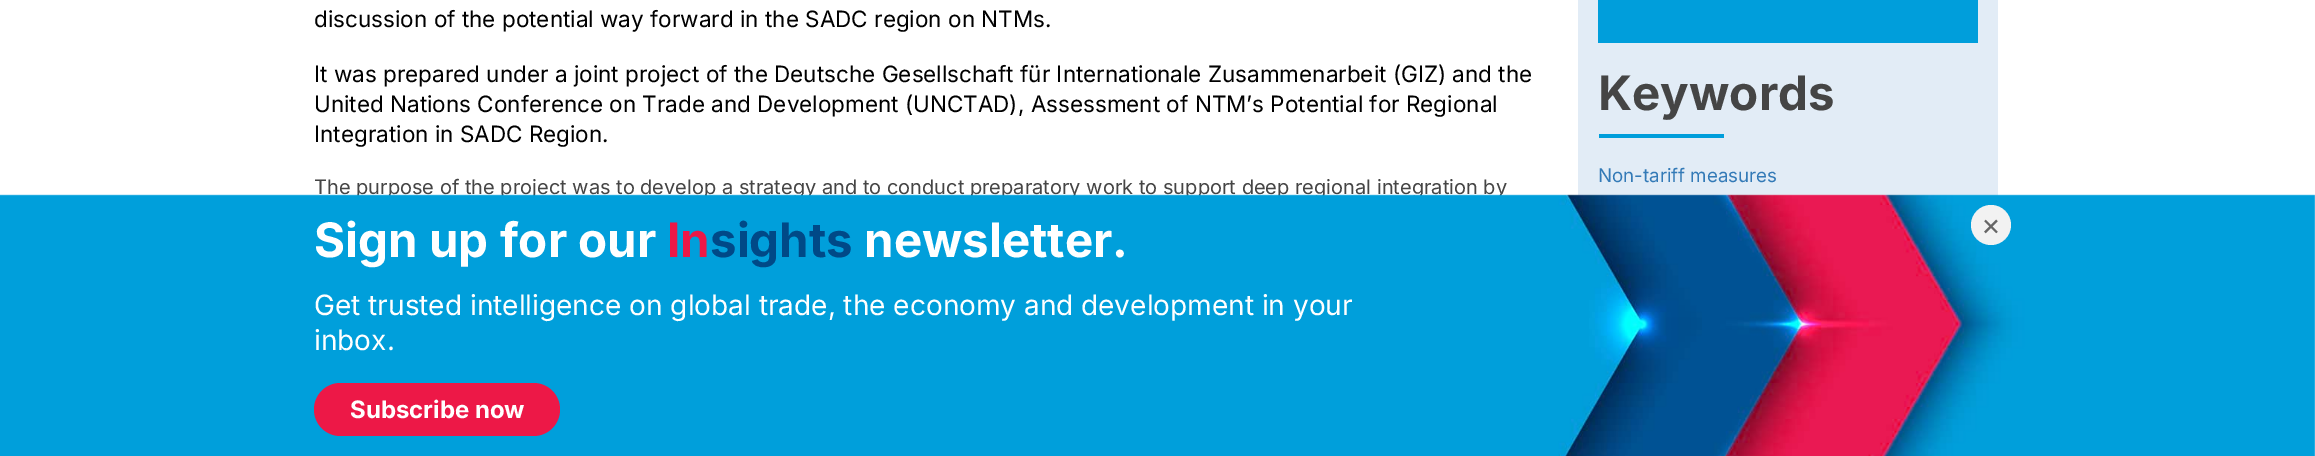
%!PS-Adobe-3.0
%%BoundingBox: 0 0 2315 456
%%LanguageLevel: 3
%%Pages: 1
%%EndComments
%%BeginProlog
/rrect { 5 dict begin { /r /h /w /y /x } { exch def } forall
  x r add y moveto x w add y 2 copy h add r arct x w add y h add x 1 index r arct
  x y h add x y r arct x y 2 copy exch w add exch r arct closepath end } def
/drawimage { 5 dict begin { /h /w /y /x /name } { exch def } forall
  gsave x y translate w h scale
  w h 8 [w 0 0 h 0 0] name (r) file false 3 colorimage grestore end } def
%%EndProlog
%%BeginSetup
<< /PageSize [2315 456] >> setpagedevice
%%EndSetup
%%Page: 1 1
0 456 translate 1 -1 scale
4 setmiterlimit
1 setgray
0 0 2315 456 rectfill
0.886 0.925 0.965 setrgbcolor
1578 0 420 196 rectfill
0 0.62 0.859 setrgbcolor
1598 0 380 43 rectfill
1599 134 125 4 rectfill
/Inter-Regular [22.5 0 0 -22.5 0 0] selectfont
0 setgray
314 27 moveto (discussion of the potential way forward in the SADC region on NTMs.) show
314 82 moveto (It was prepared under a joint project of the Deutsche Gesellschaft für Internationale Zusammenarbeit \(GIZ\) and the) show
314 112 moveto (United Nations Conference on Trade and Development \(UNCTAD\), Assessment of NTM’s Potential for Regional) show
314 142 moveto (Integration in SADC Region.) show
/Inter-Regular [20 0 0 -20 0 0] selectfont
0.271 setgray
314 194 moveto (The purpose of the project was to develop a strategy and to conduct preparatory work to support deep regional integration by) show
/Inter-Bold [47.5 0 0 -47.5 0 0] selectfont
1598 110 moveto (Keywords) show
/Inter-Regular [18.75 0 0 -18.75 0 0] selectfont
0.2 0.478 0.718 setrgbcolor
1598 182 moveto (Non-tariff measures) show
(images/1.raw) 0 194 2315 262 drawimage
/Inter-Bold [47.5 0 0 -47.5 0 0] selectfont
1 setgray
314 257 moveto (Sign up for our) show
0.929 0.094 0.278 setrgbcolor
667 257 moveto (In) show
0 0.286 0.529 setrgbcolor
710 257 moveto (sights) show
1 setgray
864 257 moveto (newsletter.) show
0.949 setgray
newpath 1991 225 20 0 360 arc closepath fill
/Inter-Regular [30 0 0 -30 0 0] selectfont
0.4 setgray
1981 235 moveto (×) show
/Inter-Regular [28 0 0 -28 0 0] selectfont
1 setgray
314 315 moveto (Get trusted intelligence on global trade, the economy and) show
1081 315 moveto (development in your) show
314 350 moveto (inbox.) show
0.929 0.094 0.278 setrgbcolor
314 383 246 53 26.5 rrect fill
/Inter-Bold [24 0 0 -24 0 0] selectfont
1 setgray
350 418 moveto (Subscribe now) show
showpage
%%EOF
